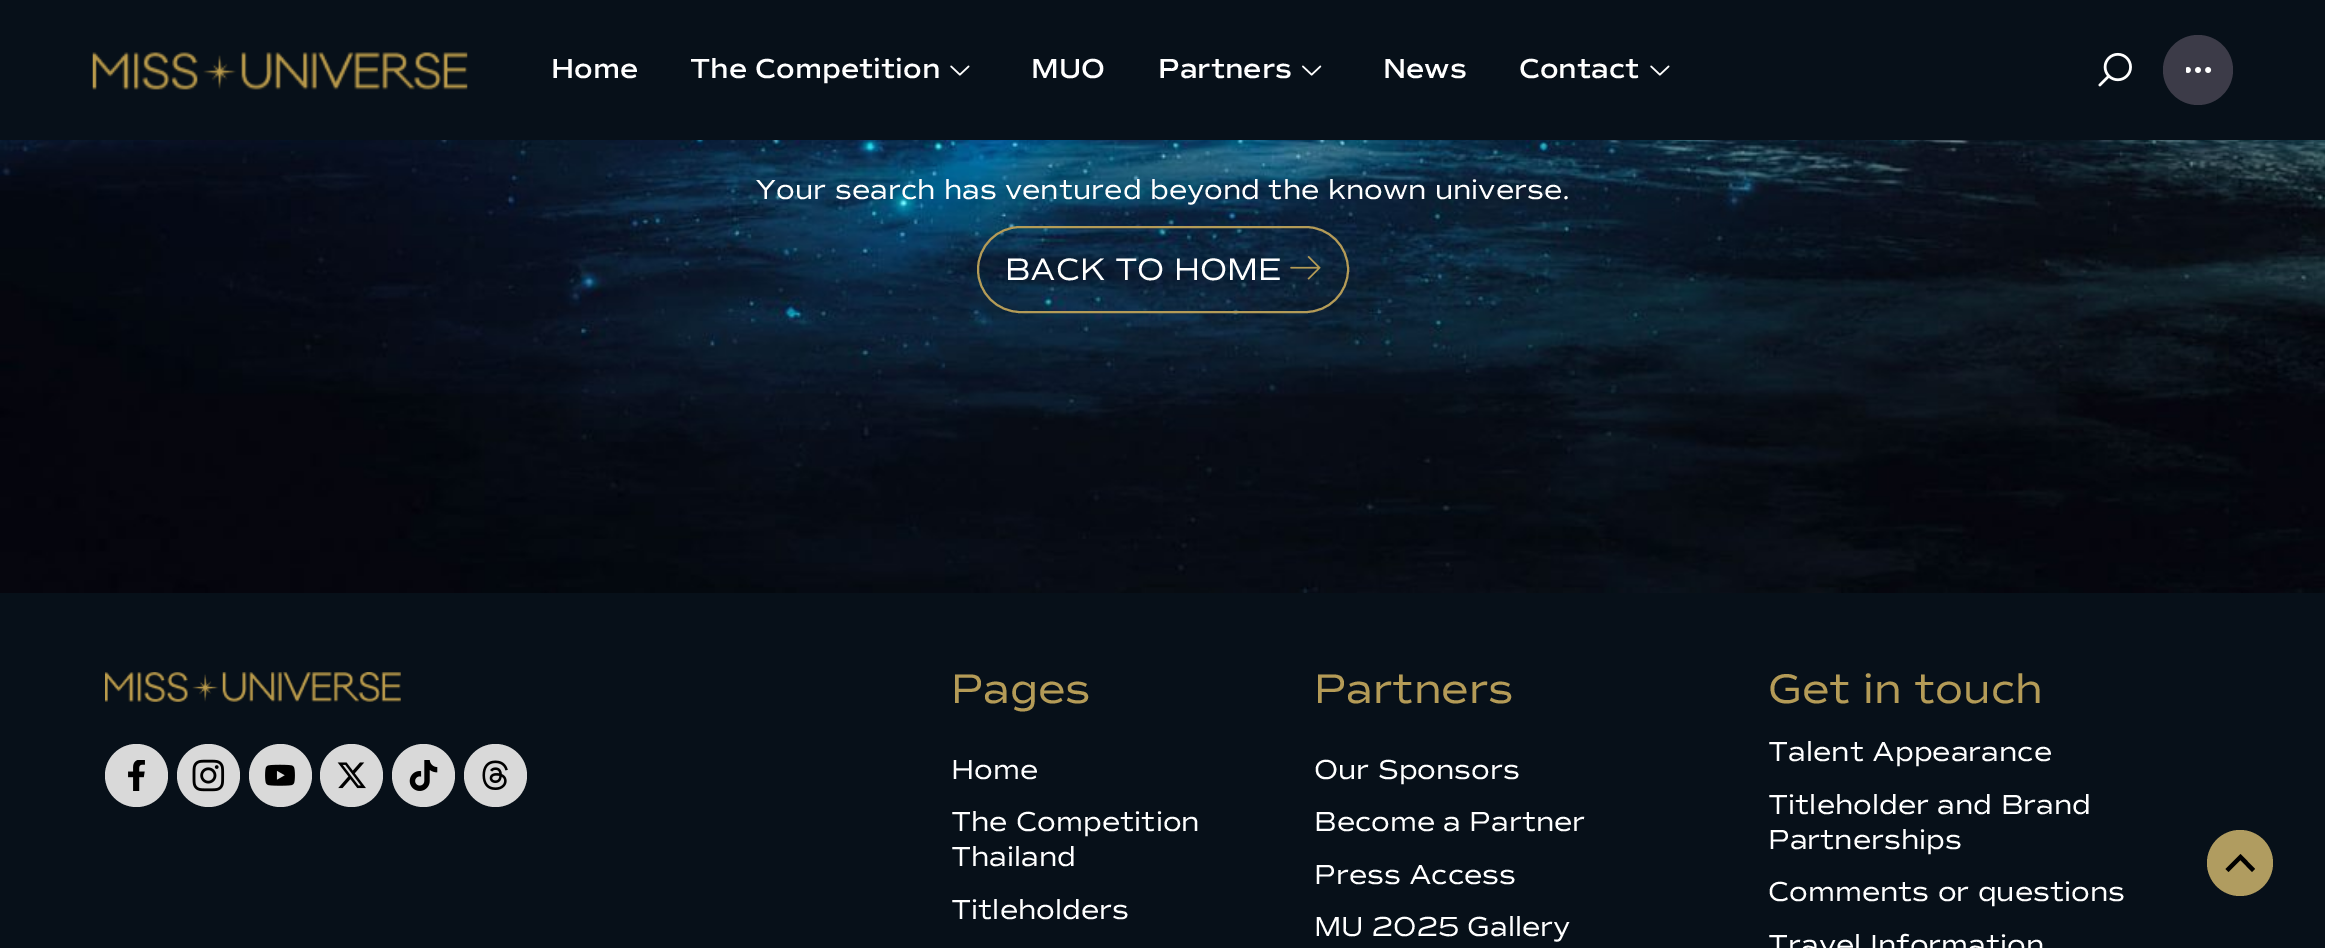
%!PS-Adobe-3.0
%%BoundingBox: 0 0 2325 948
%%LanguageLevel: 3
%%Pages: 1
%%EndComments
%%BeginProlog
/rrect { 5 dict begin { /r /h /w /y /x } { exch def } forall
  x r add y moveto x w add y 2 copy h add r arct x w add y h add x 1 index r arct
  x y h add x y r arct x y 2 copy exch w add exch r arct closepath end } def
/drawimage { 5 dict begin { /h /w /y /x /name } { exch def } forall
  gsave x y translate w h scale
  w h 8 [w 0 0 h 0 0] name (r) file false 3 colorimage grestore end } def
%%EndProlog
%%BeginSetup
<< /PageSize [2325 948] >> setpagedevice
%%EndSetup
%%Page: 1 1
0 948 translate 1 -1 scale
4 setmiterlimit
1 setgray
0 0 2325 948 rectfill
0.027 0.063 0.098 setrgbcolor
0 0 2325 140 rectfill
(images/1.raw) 92 52 376 38 drawimage
(images/2.raw) 950 65 20 11 drawimage
(images/3.raw) 1302 65 20 11 drawimage
(images/2.raw) 1650 65 20 11 drawimage
(images/4.raw) 2098 52 34 35 drawimage
0.235 0.231 0.282 setrgbcolor
newpath 2198 70 35 0 360 arc closepath fill
(images/5.raw) 2186 67 26 6 drawimage
(images/6.raw) 0 140 2325 453 drawimage
0.706 0.608 0.341 setrgbcolor
2 setlinewidth
978 227 370 85 42.5 rrect stroke
(images/7.raw) 1290 256 31 24 drawimage
0.027 0.063 0.098 setrgbcolor
0 593 2325 355 rectfill
(images/8.raw) 105 672 296 30 drawimage
0.851 setgray
newpath 136.5 775.5 31.5 0 360 arc closepath fill
(images/9.raw) 128 760 17 31 drawimage
newpath 208.5 775.5 31.5 0 360 arc closepath fill
(images/10.raw) 192 759 33 33 drawimage
newpath 280.5 775.5 31.5 0 360 arc closepath fill
(images/11.raw) 265 764 30 22 drawimage
newpath 351.5 775.5 31.5 0 360 arc closepath fill
(images/12.raw) 337 762 29 27 drawimage
newpath 423.5 775.5 31.5 0 360 arc closepath fill
(images/13.raw) 409 760 29 31 drawimage
newpath 495.5 775.5 31.5 0 360 arc closepath fill
(images/14.raw) 482 760 26 30 drawimage
0.69 0.612 0.376 setrgbcolor
newpath 2240 863 33 0 360 arc closepath fill
0 setgray
newpath 2255 869 moveto 2240.5 854 lineto 2225.5 869 lineto 2228.5 872 lineto 2240.5 860 lineto 2252 872 lineto closepath fill
/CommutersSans-SemiBold [28 0 0 -28 0 0] selectfont
1 setgray
551 78 moveto (Home) show
690 78 moveto (The Competition) show
1031 78 moveto (MUO) show
1158 78 moveto (Partners) show
1383 78 moveto (News) show
1519 78 moveto (Contact) show
/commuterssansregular-Regular [28 0 0 -28 0 0] selectfont
755 199 moveto (Your search has ventured beyond the known universe.) show
/commuterssansregular-Regular [31.5 0 0 -31.5 0 0] selectfont
1005 280 moveto (BACK TO HOME) show
/commuterssansregular-Regular [42 0 0 -42 0 0] selectfont
0.706 0.608 0.341 setrgbcolor
951 703 moveto (Pages) show
/commuterssansregular-Regular [28 0 0 -28 0 0] selectfont
1 setgray
951 779 moveto (Home) show
951 831 moveto (The Competition) show
951 866 moveto (Thailand) show
951 919 moveto (Titleholders) show
/commuterssansregular-Regular [42 0 0 -42 0 0] selectfont
0.706 0.608 0.341 setrgbcolor
1314 703 moveto (Partners) show
/commuterssansregular-Regular [28 0 0 -28 0 0] selectfont
1 setgray
1314 779 moveto (Our Sponsors) show
1314 831 moveto (Become a Partner) show
1314 884 moveto (Press Access) show
1314 936 moveto (MU 2025 Gallery) show
/commuterssansregular-Regular [42 0 0 -42 0 0] selectfont
0.706 0.608 0.341 setrgbcolor
1768 703 moveto (Get in touch) show
/commuterssansregular-Regular [28 0 0 -28 0 0] selectfont
1 setgray
1768 761 moveto (Talent Appearance) show
1768 814 moveto (Titleholder and Brand) show
1768 849 moveto (Partnerships) show
1768 901 moveto (Comments or questions) show
1768 954 moveto (Travel Information) show
showpage
%%EOF
